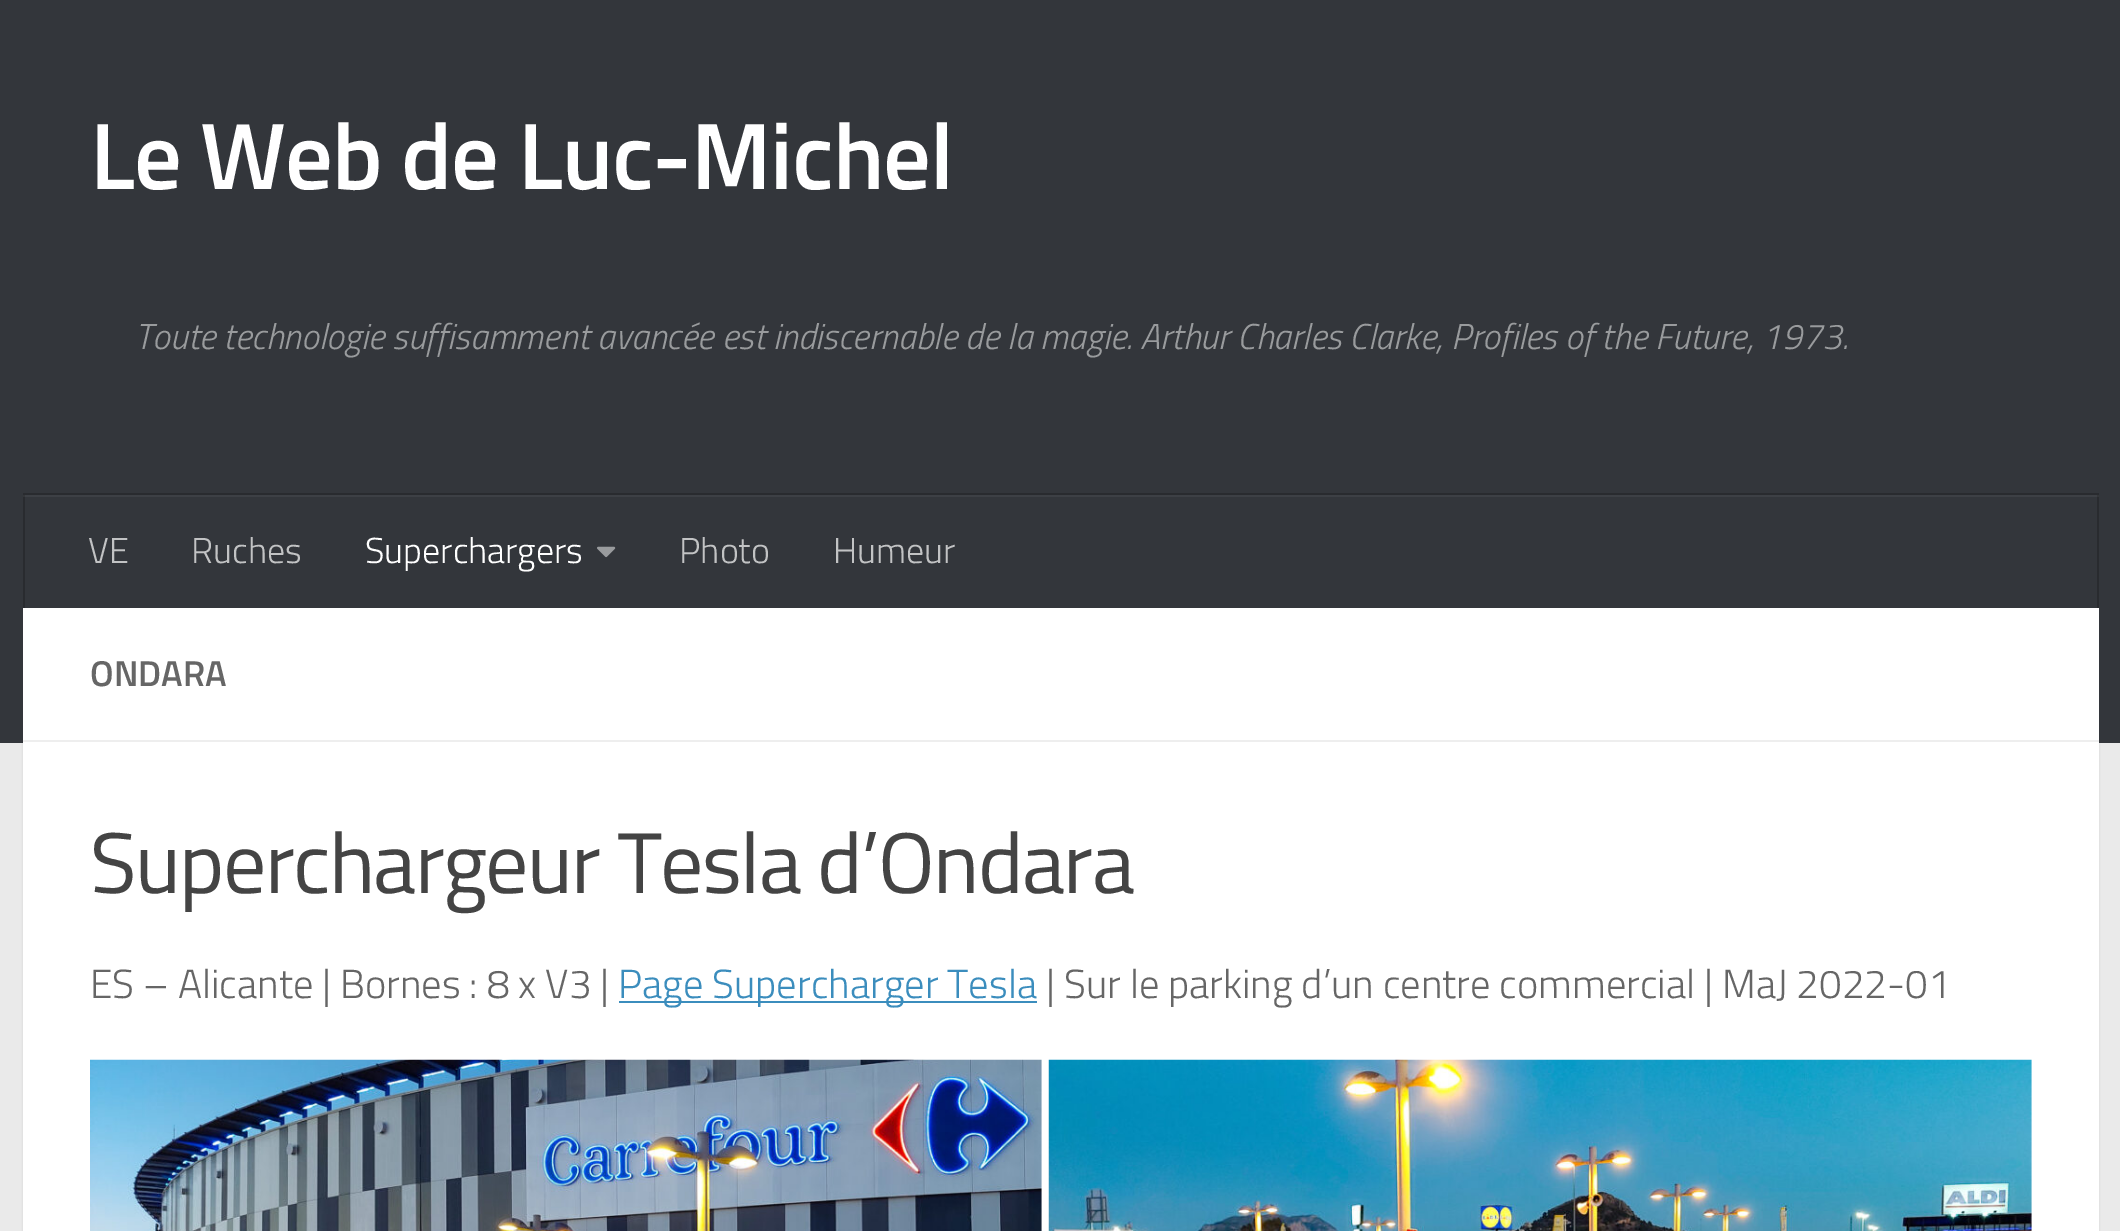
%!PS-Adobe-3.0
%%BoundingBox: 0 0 2120 1231
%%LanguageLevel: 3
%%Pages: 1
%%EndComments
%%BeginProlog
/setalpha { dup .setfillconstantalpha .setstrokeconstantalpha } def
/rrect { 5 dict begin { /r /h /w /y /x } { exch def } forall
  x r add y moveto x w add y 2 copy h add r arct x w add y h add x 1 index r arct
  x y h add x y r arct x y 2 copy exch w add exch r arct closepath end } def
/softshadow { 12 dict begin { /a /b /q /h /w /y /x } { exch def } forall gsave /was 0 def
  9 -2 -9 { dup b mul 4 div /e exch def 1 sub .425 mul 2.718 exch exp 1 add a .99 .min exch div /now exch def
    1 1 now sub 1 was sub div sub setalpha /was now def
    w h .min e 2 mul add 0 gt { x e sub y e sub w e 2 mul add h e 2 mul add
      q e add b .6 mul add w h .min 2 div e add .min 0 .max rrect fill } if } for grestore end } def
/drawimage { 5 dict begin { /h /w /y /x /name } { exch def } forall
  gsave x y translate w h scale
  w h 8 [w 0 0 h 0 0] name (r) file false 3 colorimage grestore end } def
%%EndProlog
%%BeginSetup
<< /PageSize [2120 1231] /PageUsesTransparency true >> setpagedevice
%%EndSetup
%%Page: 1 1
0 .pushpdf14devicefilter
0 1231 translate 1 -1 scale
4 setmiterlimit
0.918 setgray
0 0 2120 1231 rectfill
0 setgray
23 610 2076 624 0 1 0.1 softshadow
0.2 0.212 0.231 setrgbcolor
0 0 2120 743 rectfill
0.239 0.251 0.271 setrgbcolor
23 495 2076 2 rectfill
0.161 0.169 0.184 setrgbcolor
23 493 2076 2 rectfill
2097 495 2 113 rectfill
0.204 0.212 0.224 setrgbcolor
2097 495 2 2 rectfill
0.161 0.169 0.184 setrgbcolor
23 495 2 113 rectfill
0.204 0.212 0.224 setrgbcolor
23 495 2 2 rectfill
(images/1.raw) 597 546 19 12 drawimage
1 setgray
23 608 2076 623 rectfill
0.933 setgray
23 740 2076 2 rectfill
0.231 0.553 0.741 setrgbcolor
619 1001 418 2 rectfill
(images/2.raw) 90 1059 952 172 drawimage
(images/3.raw) 1048 1059 984 172 drawimage
/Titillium-SemiBold [94.5 0 0 -94.5 0 0] selectfont
1 setgray
90 189 moveto -1.1 0 (Le Web de Luc-Michel) ashow
/Titillium-LightItalic [36 0 0 -36 0 0] selectfont
0.6 0.608 0.616 setrgbcolor
135 349 moveto (Toute technologie suffisamment avancée est indiscernable de la magie. Arthur Charles Clarke, Profiles of the Future, 1973.) show
/Titillium-Light [36 0 0 -36 0 0] selectfont
0.761 0.765 0.769 setrgbcolor
88 563 moveto (VE) show
191 563 moveto (Ruches) show
1 setgray
365 563 moveto (Superchargers) show
0.761 0.765 0.769 setrgbcolor
679 563 moveto (Photo) show
833 563 moveto (Humeur) show
/Titillium-SemiBold [36 0 0 -36 0 0] selectfont
0.4 setgray
90 686 moveto (ONDARA) show
/Titillium-Regular [86 0 0 -86 0 0] selectfont
0.267 setgray
90 893 moveto -1.6 0 (Superchargeur Tesla d’Ondara) ashow
/Titillium-Light [40.5 0 0 -40.5 0 0] selectfont
0.4 setgray
90 998 moveto (ES – Alicante | Bornes : 8 x V3 |) show
0.231 0.553 0.741 setrgbcolor
618 998 moveto (Page Supercharger Tesla) show
0.4 setgray
1046 998 moveto (| Sur le parking d’un centre commercial | MaJ 2022-01) show
.poppdf14devicefilter showpage
%%EOF
